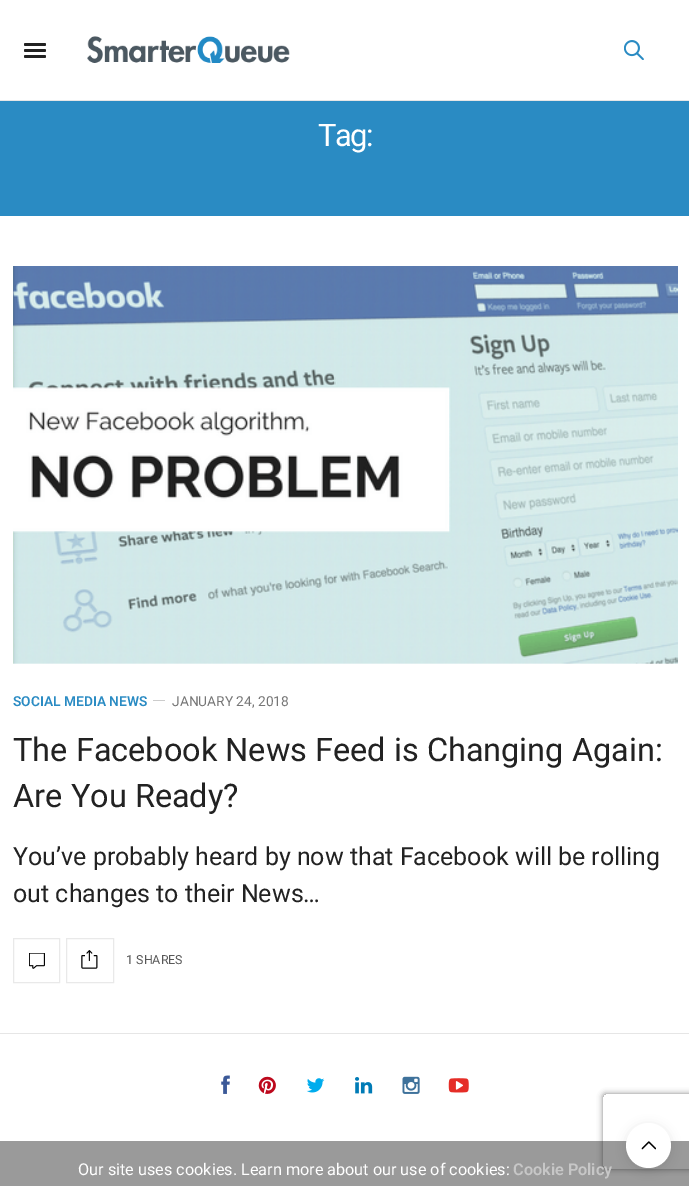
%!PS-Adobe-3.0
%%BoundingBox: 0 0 689 1186
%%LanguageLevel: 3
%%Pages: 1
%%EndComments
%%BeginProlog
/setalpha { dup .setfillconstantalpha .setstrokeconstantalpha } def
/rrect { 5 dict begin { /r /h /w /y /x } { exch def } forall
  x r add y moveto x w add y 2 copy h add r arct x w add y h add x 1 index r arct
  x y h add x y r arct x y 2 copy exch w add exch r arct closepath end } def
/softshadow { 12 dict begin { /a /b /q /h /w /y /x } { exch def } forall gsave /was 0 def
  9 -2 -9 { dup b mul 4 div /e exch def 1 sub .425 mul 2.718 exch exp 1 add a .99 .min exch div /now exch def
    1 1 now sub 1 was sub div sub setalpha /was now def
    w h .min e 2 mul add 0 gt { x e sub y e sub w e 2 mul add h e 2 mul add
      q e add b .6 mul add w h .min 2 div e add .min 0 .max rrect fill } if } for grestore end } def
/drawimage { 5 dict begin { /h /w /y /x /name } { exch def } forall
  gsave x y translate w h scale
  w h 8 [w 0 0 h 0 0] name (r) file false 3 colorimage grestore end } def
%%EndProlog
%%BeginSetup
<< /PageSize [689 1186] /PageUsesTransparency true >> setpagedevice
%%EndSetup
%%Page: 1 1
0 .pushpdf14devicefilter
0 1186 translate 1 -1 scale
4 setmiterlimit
1 setgray
0 0 689 1186 rectfill
0.902 setgray
0 100 689 1 rectfill
0.133 setgray
24 43 22 3 1.5 rrect fill
24 49 22 3 1.5 rrect fill
24 55 22 3 1.5 rrect fill
(images/1.raw) 87 36 203 27 drawimage
(images/2.raw) 624 40 20 20 drawimage
0.165 0.545 0.765 setrgbcolor
0 101 689 115 rectfill
(images/3.raw) 13 266 665 398 drawimage
0.8 setgray
153 700 12 1 rectfill
0.914 setgray
13.5 938.5 46 44 rectstroke
(images/4.raw) 29 953 16 16 drawimage
66.5 938.5 47 44 rectstroke
(images/5.raw) 81 950 17 19 drawimage
0.902 setgray
0 1033 689 1 rectfill
(images/6.raw) 221 1075 9 19 drawimage
(images/7.raw) 258 1076 18 18 drawimage
(images/8.raw) 306 1078 19 15 drawimage
(images/9.raw) 355 1077 18 17 drawimage
(images/10.raw) 402 1076 18 18 drawimage
(images/11.raw) 448 1078 21 15 drawimage
gsave
newpath 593 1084 moveto 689 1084 lineto 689 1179 lineto 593 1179 lineto closepath 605.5 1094 moveto 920.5 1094 lineto 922 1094 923 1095 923 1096.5 curveto 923 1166.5 lineto 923 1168 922 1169 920.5 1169 curveto 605.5 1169 lineto 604 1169 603 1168 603 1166.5 curveto 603 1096.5 lineto 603 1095 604 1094 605.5 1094 curveto closepath eoclip newpath
0.502 setgray
603 1094 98 75 2.5 3 1 softshadow
grestore
0.46 setalpha
0.133 setgray
0 1141 689 45 rectfill
1 setalpha
0 setgray
626 1125 45 45 22.5 5 0.1 softshadow
1 setgray
newpath 648.5 1145.5 22.5 0 360 arc closepath fill
(images/12.raw) 641 1141 15 9 drawimage
/Roboto-Regular [31 0 0 -31 0 0] selectfont
318 146 moveto -1.5 0 (Tag:) ashow
/Roboto-SemiBold [13.75 0 0 -13.75 0 0] selectfont
0.165 0.545 0.765 setrgbcolor
13 706 moveto (SOCIAL MEDIA NEWS) show
/Roboto-Regular [13.75 0 0 -13.75 0 0] selectfont
0.463 setgray
172 706 moveto (JANUARY 24, 2018) show
/Roboto-Regular [32.5 0 0 -32.5 0 0] selectfont
0.133 setgray
13 761 moveto (The Facebook News Feed is Changing Again:) show
13 807 moveto (Are You Ready?) show
/Roboto-Regular [25 0 0 -25 0 0] selectfont
13 865 moveto (You’ve probably heard by now that Facebook will be rolling) show
13 902 moveto (out changes to their News…) show
/Roboto-Regular [12.5 0 0 -12.5 0 0] selectfont
0.349 setgray
126 964 moveto (1 SHARES) show
/Roboto-Regular [16.25 0 0 -16.25 0 0] selectfont
1 setgray
78 1175 moveto (Our site uses cookies. Learn more about our use of cookies:) show
/Roboto-SemiBold [16.25 0 0 -16.25 0 0] selectfont
0.78 setgray
513 1175 moveto (Cookie Policy) show
.poppdf14devicefilter showpage
%%EOF
